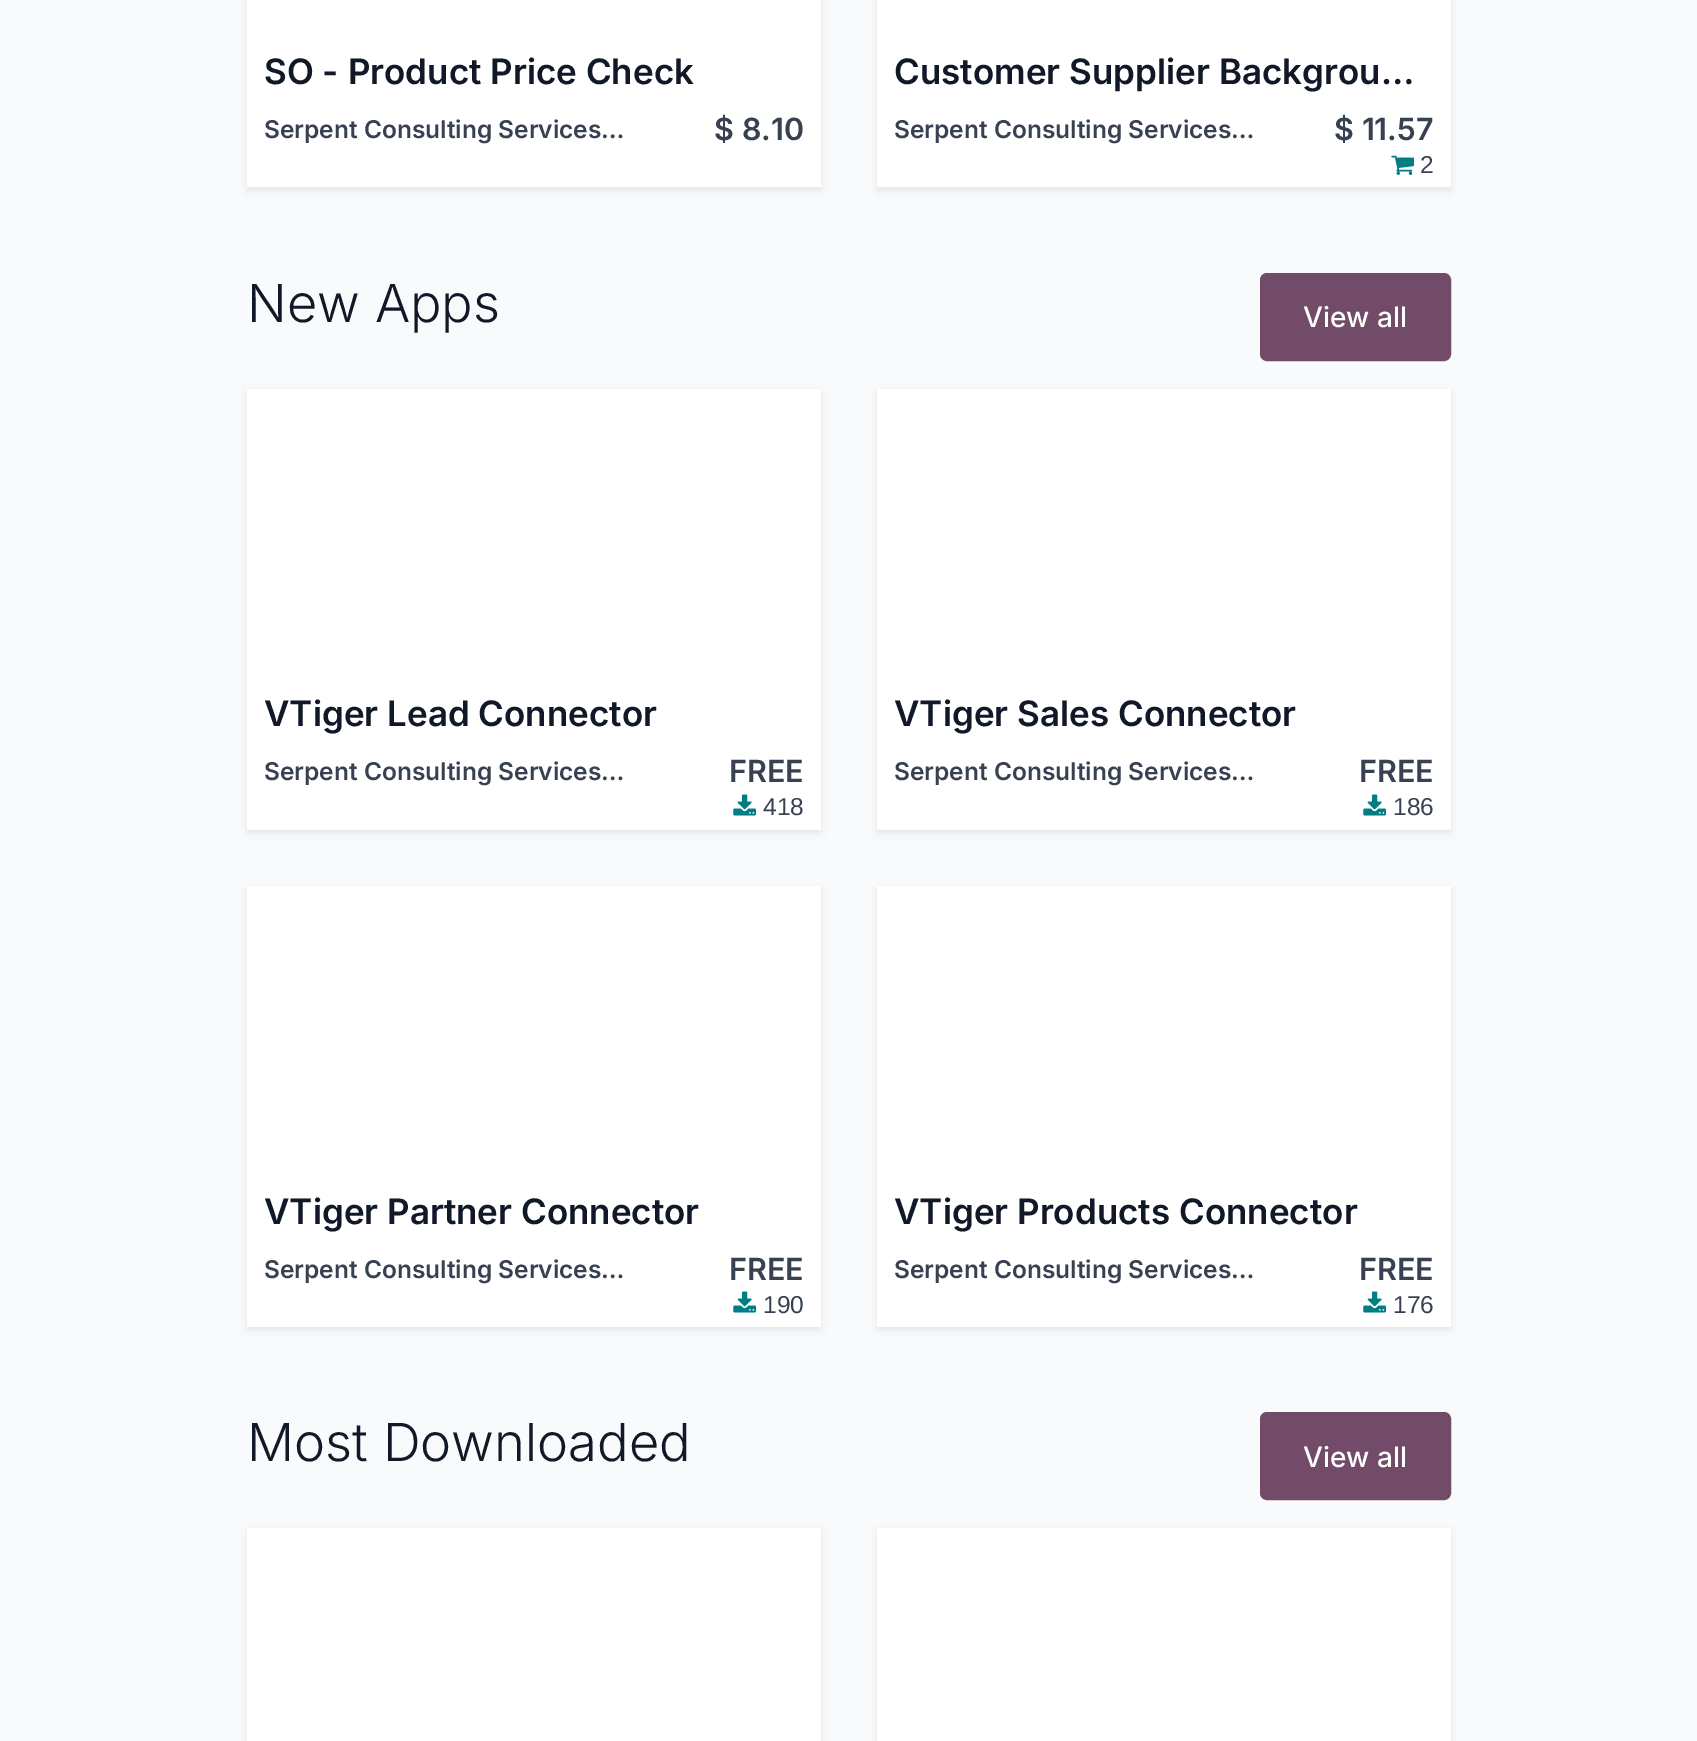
%!PS-Adobe-3.0
%%BoundingBox: 0 0 1697 1741
%%LanguageLevel: 3
%%Pages: 1
%%EndComments
%%BeginProlog
/setalpha { dup .setfillconstantalpha .setstrokeconstantalpha } def
/rrect { 5 dict begin { /r /h /w /y /x } { exch def } forall
  x r add y moveto x w add y 2 copy h add r arct x w add y h add x 1 index r arct
  x y h add x y r arct x y 2 copy exch w add exch r arct closepath end } def
/softshadow { 12 dict begin { /a /b /q /h /w /y /x } { exch def } forall gsave /was 0 def
  9 -2 -9 { dup b mul 4 div /e exch def 1 sub .425 mul 2.718 exch exp 1 add a .99 .min exch div /now exch def
    1 1 now sub 1 was sub div sub setalpha /was now def
    w h .min e 2 mul add 0 gt { x e sub y e sub w e 2 mul add h e 2 mul add
      q e add b .6 mul add w h .min 2 div e add .min 0 .max rrect fill } if } for grestore end } def
/drawimage { 5 dict begin { /h /w /y /x /name } { exch def } forall
  gsave x y translate w h scale
  w h 8 [w 0 0 h 0 0] name (r) file false 3 colorimage grestore end } def
%%EndProlog
%%BeginSetup
<< /PageSize [1697 1741] /PageUsesTransparency true >> setpagedevice
%%EndSetup
%%Page: 1 1
0 .pushpdf14devicefilter
0 1741 translate 1 -1 scale
4 setmiterlimit
0.976 0.98 0.984 setrgbcolor
0 0 1697 1741 rectfill
0 setgray
247 -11 574 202 0 3.5 0.07 softshadow
1 setgray
247 0 574 187 rectfill
0 setgray
877 -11 574 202 0 3.5 0.07 softshadow
1 setgray
877 0 574 187 rectfill
(images/1.raw) 1391 155 23 20 drawimage
0.443 0.294 0.404 setrgbcolor
1261 274 189 86 6 rrect gsave fill grestore
2 setlinewidth
stroke
0 setgray
247 392 574 441 0 3.5 0.07 softshadow
1 setgray
247 389 574 441 rectfill
(images/2.raw) 733 794 23 22 drawimage
0 setgray
877 392 574 441 0 3.5 0.07 softshadow
1 setgray
877 389 574 441 rectfill
(images/2.raw) 1363 794 23 22 drawimage
0 setgray
247 889 574 441 0 3.5 0.07 softshadow
1 setgray
247 886 574 441 rectfill
(images/2.raw) 733 1291 23 22 drawimage
0 setgray
877 889 574 441 0 3.5 0.07 softshadow
1 setgray
877 886 574 441 rectfill
(images/2.raw) 1363 1291 23 22 drawimage
0.443 0.294 0.404 setrgbcolor
1261 1413 189 86 6 rrect gsave fill grestore
stroke
0 setgray
247 1531 574 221 0 3.5 0.07 softshadow
1 setgray
247 1528 574 213 rectfill
0 setgray
877 1531 574 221 0 3.5 0.07 softshadow
1 setgray
877 1528 574 213 rectfill
/Inter-SemiBold [35 0 0 -35 0 0] selectfont
0.067 0.094 0.153 setrgbcolor
264 84 moveto (SO - Product Price Check) show
/Inter-SemiBold [24.5 0 0 -24.5 0 0] selectfont
0.216 0.255 0.318 setrgbcolor
264 138 moveto (Serpent Consulting Services…) show
/Inter-SemiBold [30.5 0 0 -30.5 0 0] selectfont
714 140 moveto ($ 8.10) show
/Inter-SemiBold [35 0 0 -35 0 0] selectfont
0.067 0.094 0.153 setrgbcolor
894 84 moveto (Customer Supplier Backgrou…) show
/Inter-SemiBold [24.5 0 0 -24.5 0 0] selectfont
0.216 0.255 0.318 setrgbcolor
894 138 moveto (Serpent Consulting Services…) show
/Inter-SemiBold [30.5 0 0 -30.5 0 0] selectfont
1334 140 moveto ($ 11.57) show
/LiberationSans-Regular [24.5 0 0 -24.5 0 0] selectfont
1420 173 moveto (2) show
/Inter-Light [52.4 0 0 -52.4 0 0] selectfont
0.067 0.094 0.153 setrgbcolor
247 322 moveto (New Apps) show
/Inter-Medium [28 0 0 -28 0 0] selectfont
1 setgray
1303 327 moveto (View all) show
/Inter-SemiBold [35 0 0 -35 0 0] selectfont
0.067 0.094 0.153 setrgbcolor
264 726 moveto (VTiger Lead Connector) show
/Inter-SemiBold [24.5 0 0 -24.5 0 0] selectfont
0.216 0.255 0.318 setrgbcolor
264 780 moveto (Serpent Consulting Services…) show
/Inter-SemiBold [30.5 0 0 -30.5 0 0] selectfont
729 782 moveto (FREE) show
/LiberationSans-Regular [24.5 0 0 -24.5 0 0] selectfont
763 815 moveto (418) show
/Inter-SemiBold [35 0 0 -35 0 0] selectfont
0.067 0.094 0.153 setrgbcolor
894 726 moveto (VTiger Sales Connector) show
/Inter-SemiBold [24.5 0 0 -24.5 0 0] selectfont
0.216 0.255 0.318 setrgbcolor
894 780 moveto (Serpent Consulting Services…) show
/Inter-SemiBold [30.5 0 0 -30.5 0 0] selectfont
1359 782 moveto (FREE) show
/LiberationSans-Regular [24.5 0 0 -24.5 0 0] selectfont
1393 815 moveto (186) show
/Inter-SemiBold [35 0 0 -35 0 0] selectfont
0.067 0.094 0.153 setrgbcolor
264 1224 moveto (VTiger Partner Connector) show
/Inter-SemiBold [24.5 0 0 -24.5 0 0] selectfont
0.216 0.255 0.318 setrgbcolor
264 1278 moveto (Serpent Consulting Services…) show
/Inter-SemiBold [30.5 0 0 -30.5 0 0] selectfont
729 1280 moveto (FREE) show
/LiberationSans-Regular [24.5 0 0 -24.5 0 0] selectfont
763 1313 moveto (190) show
/Inter-SemiBold [35 0 0 -35 0 0] selectfont
0.067 0.094 0.153 setrgbcolor
894 1224 moveto (VTiger Products Connector) show
/Inter-SemiBold [24.5 0 0 -24.5 0 0] selectfont
0.216 0.255 0.318 setrgbcolor
894 1278 moveto (Serpent Consulting Services…) show
/Inter-SemiBold [30.5 0 0 -30.5 0 0] selectfont
1359 1280 moveto (FREE) show
/LiberationSans-Regular [24.5 0 0 -24.5 0 0] selectfont
1393 1313 moveto (176) show
/Inter-Light [52.4 0 0 -52.4 0 0] selectfont
0.067 0.094 0.153 setrgbcolor
247 1461 moveto (Most Downloaded) show
/Inter-Medium [28 0 0 -28 0 0] selectfont
1 setgray
1303 1467 moveto (View all) show
.poppdf14devicefilter showpage
%%EOF
